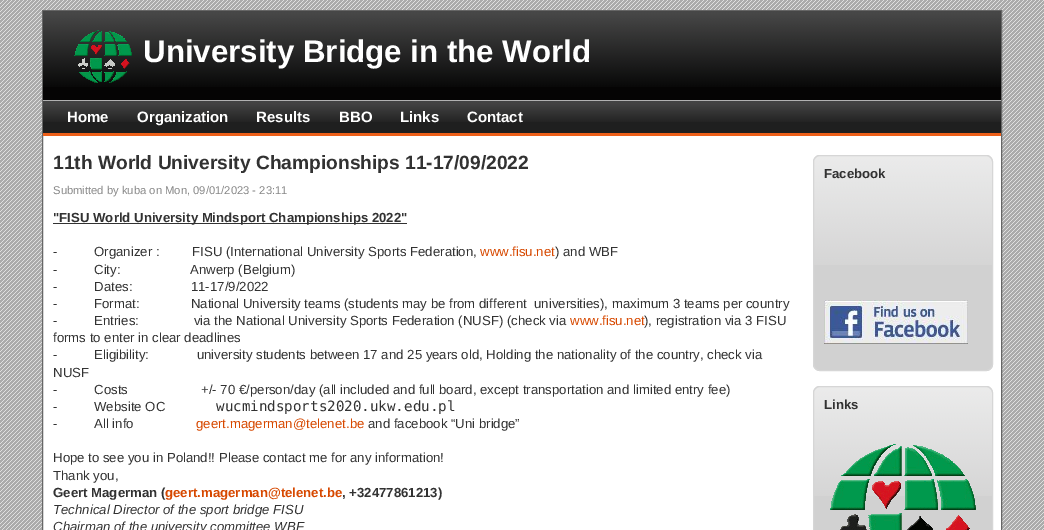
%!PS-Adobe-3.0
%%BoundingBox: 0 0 1044 530
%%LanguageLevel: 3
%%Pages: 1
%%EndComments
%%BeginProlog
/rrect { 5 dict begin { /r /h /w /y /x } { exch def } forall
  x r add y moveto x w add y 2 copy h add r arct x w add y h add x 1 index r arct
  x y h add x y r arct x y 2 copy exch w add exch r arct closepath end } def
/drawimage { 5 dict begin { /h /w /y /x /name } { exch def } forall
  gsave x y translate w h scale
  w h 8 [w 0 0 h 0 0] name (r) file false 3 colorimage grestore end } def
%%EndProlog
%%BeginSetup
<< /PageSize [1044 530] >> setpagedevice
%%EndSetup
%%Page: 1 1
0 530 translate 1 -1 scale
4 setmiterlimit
1 setgray
0 0 1044 530 rectfill
(images/1.raw) 0 0 1044 530 drawimage
43 136 958 394 rectfill
0.4 setgray
42.5 10.5 959 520 rectstroke
0.02 0.016 0.016 setrgbcolor
43 87 958 13 rectfill
(images/2.raw) 43 11 958 76 drawimage
(images/3.raw) 74 30 58 53 drawimage
0.122 setgray
43 122 958 11 rectfill
(images/4.raw) 43 101 958 21 drawimage
0.694 setgray
43 100 958 1 rectfill
0.929 0.373 0.098 setrgbcolor
43 133 958 3 rectfill
0.196 setgray
53 223 354 1 rectfill
0.82 setgray
813 155 180 216 7 rrect fill
(images/5.raw) 813 156 180 109 drawimage
0.839 setgray
813.5 155.5 179 215 6.5 rrect stroke
(images/6.raw) 824 300 144 44 drawimage
0.82 setgray
813 386 180 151 7 rrect fill
(images/5.raw) 813 387 180 109 drawimage
0.839 setgray
813.5 386.5 179 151 6.5 rrect stroke
(images/7.raw) 830 444 146 86 drawimage
/LiberationSans-Bold [31.25 0 0 -31.25 0 0] selectfont
1 setgray
143 62 moveto (University Bridge in the World) show
/LiberationSans-Bold [15 0 0 -15 0 0] selectfont
67 122 moveto (Home) show
137 122 moveto (Organization) show
256 122 moveto (Results) show
339 122 moveto (BBO) show
400 122 moveto (Links) show
467 122 moveto (Contact) show
/LiberationSans-Bold [19.2 0 0 -19.2 0 0] selectfont
0.196 setgray
53 169 moveto (11th World University Championships 11-17/09/2022) show
/LiberationSans-Regular [11.25 0 0 -11.25 0 0] selectfont
0.533 setgray
53 194 moveto (Submitted by kuba on Mon, 09/01/2023 - 23:11) show
/LiberationSans-Bold [13.2 0 0 -13.2 0 0] selectfont
0.196 setgray
53 222 moveto ("FISU World University Mindsport Championships 2022") show
/LiberationSans-Regular [13.2 0 0 -13.2 0 0] selectfont
53 256 moveto (-          Organizer :         FISU \(International University Sports Federation,) show
0.843 0.282 0 setrgbcolor
480 256 moveto (www.fisu.net) show
0.196 setgray
555 256 moveto (\) and WBF) show
53 274 moveto (-          City:                   Anwerp \(Belgium\)) show
53 291 moveto (-          Dates:                11-17/9/2022) show
53 308 moveto (-          Format:              National University teams \(students may be from different  universities\), maximum 3 teams per country) show
53 325 moveto (-          Entries:               via the National University Sports Federation \(NUSF\) \(check via) show
0.843 0.282 0 setrgbcolor
570 325 moveto (www.fisu.net) show
0.196 setgray
644 325 moveto (\), registration via 3 FISU) show
53 342 moveto (forms to enter in clear deadlines) show
53 359 moveto (-          Eligibility:             university students between 17 and 25 years old, Holding the nationality of the country, check via) show
53 377 moveto (NUSF) show
53 394 moveto (-          Costs                    +/- 70 €/person/day \(all included and full board, except transportation and limited entry fee\)) show
53 411 moveto (-          Website OC) show
/DejaVuSansMono-Regular [14.2 0 0 -14.2 0 0] selectfont
216 411 moveto (wucmindsports2020.ukw.edu.pl) show
/LiberationSans-Regular [13.2 0 0 -13.2 0 0] selectfont
53 428 moveto (-          All info) show
0.843 0.282 0 setrgbcolor
196 428 moveto (geert.magerman@telenet.be) show
0.196 setgray
368 428 moveto (and facebook “Uni bridge”) show
53 462 moveto (Hope to see you in Poland!! Please contact me for any information!) show
53 480 moveto (Thank you,) show
/LiberationSans-Bold [13.2 0 0 -13.2 0 0] selectfont
53 497 moveto (Geert Magerman \() show
0.843 0.282 0 setrgbcolor
165 497 moveto (geert.magerman@telenet.be) show
0.196 setgray
342 497 moveto (, +32477861213\)) show
/LiberationSans-Italic [13.2 0 0 -13.2 0 0] selectfont
53 514 moveto (Technical Director of the sport bridge FISU) show
53 531 moveto (Chairman of the university committee WBF) show
/LiberationSans-Bold [13.2 0 0 -13.2 0 0] selectfont
824 178 moveto (Facebook) show
824 409 moveto (Links) show
showpage
%%EOF
